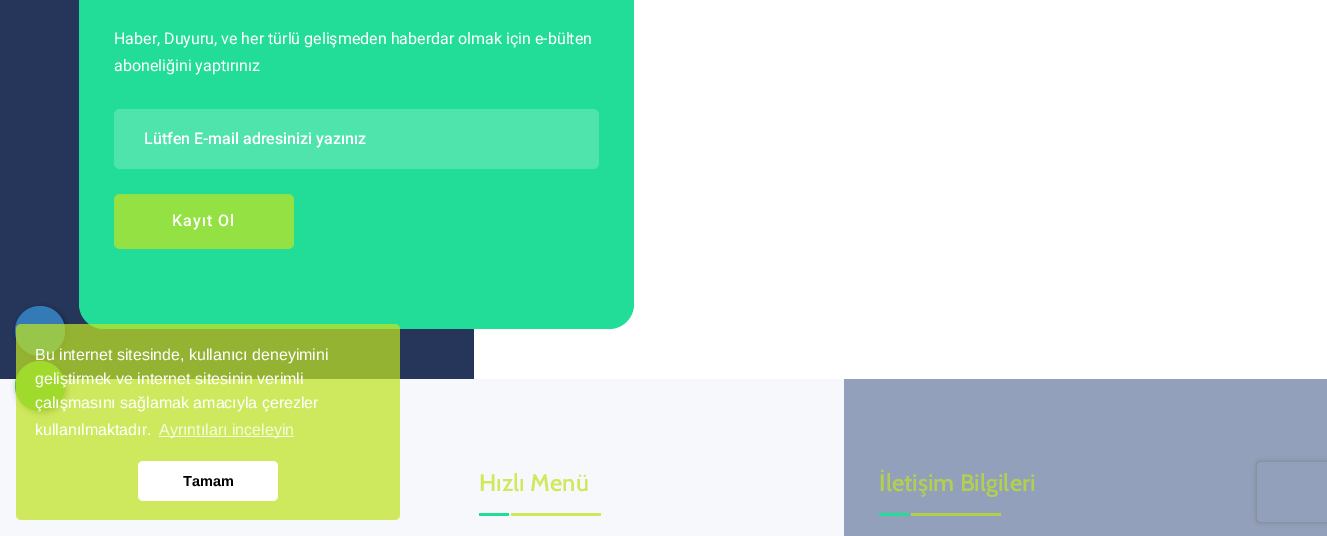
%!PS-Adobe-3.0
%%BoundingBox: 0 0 1327 536
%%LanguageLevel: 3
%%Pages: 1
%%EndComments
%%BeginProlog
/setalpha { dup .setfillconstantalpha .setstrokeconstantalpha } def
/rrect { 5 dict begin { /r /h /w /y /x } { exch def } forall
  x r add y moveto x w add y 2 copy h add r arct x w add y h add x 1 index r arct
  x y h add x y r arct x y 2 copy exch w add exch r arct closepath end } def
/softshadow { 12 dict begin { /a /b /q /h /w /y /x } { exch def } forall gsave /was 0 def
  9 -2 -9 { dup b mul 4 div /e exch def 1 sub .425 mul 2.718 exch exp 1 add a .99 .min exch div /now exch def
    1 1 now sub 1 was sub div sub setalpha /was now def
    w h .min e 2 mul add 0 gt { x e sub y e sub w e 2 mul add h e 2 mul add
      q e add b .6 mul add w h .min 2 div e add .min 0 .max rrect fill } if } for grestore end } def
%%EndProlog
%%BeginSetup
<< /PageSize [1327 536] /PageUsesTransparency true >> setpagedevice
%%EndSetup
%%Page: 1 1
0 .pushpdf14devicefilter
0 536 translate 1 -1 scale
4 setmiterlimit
1 setgray
0 0 1327 536 rectfill
0.145 0.212 0.353 setrgbcolor
0 0 474 379 rectfill
0 setgray
17 308 50 50 25 3 0.4 softshadow
0.2 0.478 0.718 setrgbcolor
newpath 40 331 25 0 360 arc closepath fill
0.133 0.867 0.592 setrgbcolor
79 -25 555 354 25 rrect fill
0.306 0.894 0.675 setrgbcolor
114 109 485 60 6 rrect fill
0.576 0.882 0.263 setrgbcolor
114 194 180 55 6 rrect fill
0.969 0.973 0.988 setrgbcolor
0 379 844 157 rectfill
0.133 0.867 0.592 setrgbcolor
479 513 30 3 rectfill
0.812 0.914 0.373 setrgbcolor
511 513 90 3 rectfill
0.573 0.627 0.733 setrgbcolor
844 379 483 157 rectfill
0.133 0.867 0.592 setrgbcolor
879 513 30 3 rectfill
0.698 0.816 0.302 setrgbcolor
911 513 90 3 rectfill
0 setgray
17 363 50 50 25 3 0.4 softshadow
0.302 0.761 0.278 setrgbcolor
newpath 40 386 25 0 360 arc closepath fill
0.72 setalpha
0.749 0.89 0.133 setrgbcolor
16 324 384 196 5 rrect fill
1 setalpha
0.961 0.984 0.875 setrgbcolor
159 436 135 1 rectfill
1 setgray
138 461 140 40 5 rrect fill
gsave
newpath 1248 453 moveto 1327 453 lineto 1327 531 lineto 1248 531 lineto closepath 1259 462 moveto 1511 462 lineto 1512 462 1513 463 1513 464 curveto 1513 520 lineto 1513 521 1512 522 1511 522 curveto 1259 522 lineto 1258 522 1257 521 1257 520 curveto 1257 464 lineto 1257 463 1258 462 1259 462 curveto closepath eoclip newpath
0.502 setgray
1257 462 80 60 2 2.5 1 softshadow
grestore
/Roboto-Regular [16 0 0 -16 0 0] selectfont
114 44 moveto (Haber, Duyuru, ve her türlü gelişmeden haberdar olmak için e-bülten) show
114 71 moveto (aboneliğini yaptırınız) show
/Roboto-Medium [16 0 0 -16 0 0] selectfont
144 144 moveto (Lütfen E-mail adresinizi yazınız) show
172 226 moveto 1 0 (Kayıt Ol) ashow
/Cabin-SemiBold [24 0 0 -24 0 0] selectfont
0.812 0.914 0.373 setrgbcolor
479 491 moveto (Hızlı Menü) show
0.698 0.816 0.302 setrgbcolor
879 491 moveto (İletişim Bilgileri) show
/LiberationSans-Regular [16 0 0 -16 0 0] selectfont
1 setgray
35 360 moveto (Bu internet sitesinde, kullanıcı deneyimini) show
35 384 moveto (geliştirmek ve internet sitesinin verimli) show
35 408 moveto (çalışmasını sağlamak amacıyla çerezler) show
35 435 moveto (kullanılmaktadır.) show
0.961 0.984 0.875 setrgbcolor
159 435 moveto (Ayrıntıları inceleyin) show
/LiberationSans-Bold [14.5 0 0 -14.5 0 0] selectfont
0 setgray
183 486 moveto (Tamam) show
.poppdf14devicefilter showpage
%%EOF
